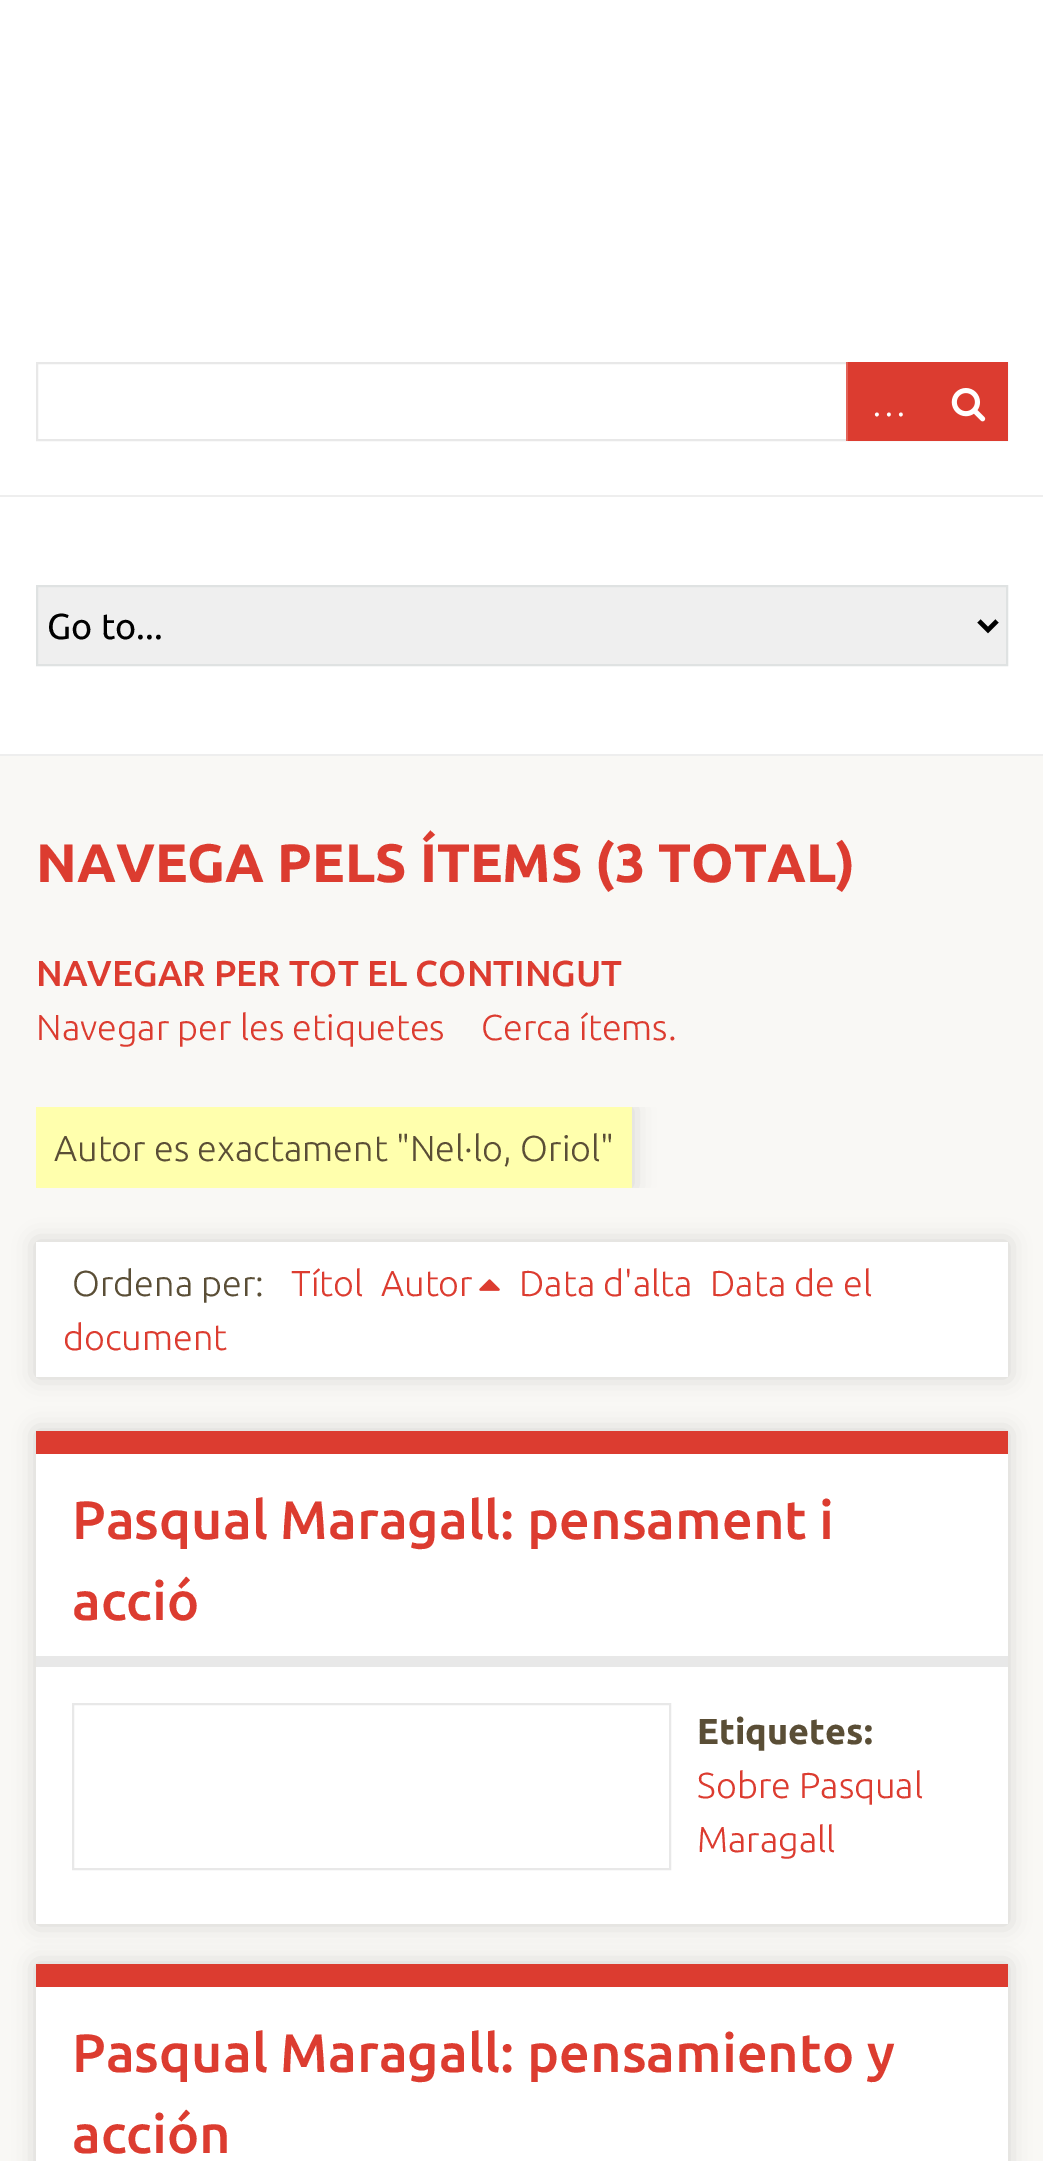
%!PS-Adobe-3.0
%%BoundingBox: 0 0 1043 2161
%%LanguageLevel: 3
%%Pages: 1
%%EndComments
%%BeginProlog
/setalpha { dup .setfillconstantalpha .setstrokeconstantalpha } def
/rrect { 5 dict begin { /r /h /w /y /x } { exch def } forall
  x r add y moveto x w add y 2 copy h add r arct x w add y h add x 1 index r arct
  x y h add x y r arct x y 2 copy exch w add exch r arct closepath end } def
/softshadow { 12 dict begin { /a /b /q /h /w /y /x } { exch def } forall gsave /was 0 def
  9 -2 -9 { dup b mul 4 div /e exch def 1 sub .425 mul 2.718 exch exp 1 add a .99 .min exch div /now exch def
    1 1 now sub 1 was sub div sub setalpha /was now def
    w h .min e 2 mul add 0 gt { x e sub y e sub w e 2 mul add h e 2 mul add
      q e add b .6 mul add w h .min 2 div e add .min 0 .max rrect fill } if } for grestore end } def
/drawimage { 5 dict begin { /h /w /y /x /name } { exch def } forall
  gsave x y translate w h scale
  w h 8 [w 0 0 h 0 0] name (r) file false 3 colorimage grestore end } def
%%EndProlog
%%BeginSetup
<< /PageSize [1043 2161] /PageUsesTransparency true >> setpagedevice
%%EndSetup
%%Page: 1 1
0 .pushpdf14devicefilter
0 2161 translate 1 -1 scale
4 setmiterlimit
1 setgray
0 0 1043 2161 rectfill
0.91 setgray
2 setlinewidth
37 363 970 77 rectstroke
0.863 0.235 0.188 setrgbcolor
846 362 162 79 rectfill
0.2 setalpha
1 setgray
846 362 2 81 rectfill
1 setalpha
(images/1.raw) 951 388 35 34 drawimage
0.933 setgray
0 495 1043 2 rectfill
0 754 1043 2 rectfill
0.937 setgray
newpath 37 586 moveto 1007 586 lineto 1007 665 lineto 37 665 lineto closepath gsave fill grestore
0.875 0.886 0.886 setrgbcolor
stroke
0 setgray
4.5 setlinewidth
newpath 979 621 moveto 988 630 lineto 997 621 lineto stroke
0.976 0.973 0.961 setrgbcolor
0 756 1043 1405 rectfill
gsave
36 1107 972 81 rectclip
0 setgray
36 1107 596 81 0 11 0.15 softshadow
grestore
1 1 0.678 setrgbcolor
36 1107 596 81 rectfill
0 setgray
36 1242 972 135 0 11 0.15 softshadow
1 setgray
36 1242 972 135 rectfill
(images/2.raw) 479 1279 21 12 drawimage
0 setgray
36 1431 972 493 0 11 0.15 softshadow
1 setgray
36 1454 972 470 rectfill
0.863 0.235 0.188 setrgbcolor
36 1431 972 23 rectfill
0.91 setgray
36 1656 972 11 rectfill
2 setlinewidth
73 1704 597 165 rectstroke
0 setgray
36 1964 972 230 0 11 0.15 softshadow
1 setgray
36 1987 972 174 rectfill
0.863 0.235 0.188 setrgbcolor
36 1964 972 23 rectfill
/Ubuntu-Light [36 0 0 -36 0 0] selectfont
1 setgray
871 416 moveto (…) show
/Ubuntu-Regular [36 0 0 -36 0 0] selectfont
0 setgray
47 639 moveto (Go to...) show
/Ubuntu-Bold [54 0 0 -54 0 0] selectfont
0.863 0.235 0.188 setrgbcolor
36 882 moveto (NAVEGA PELS ÍTEMS \(3 TOTAL\)) show
/Ubuntu-Medium [36 0 0 -36 0 0] selectfont
36 986 moveto (NAVEGAR PER TOT EL CONTINGUT) show
/Ubuntu-Light [36 0 0 -36 0 0] selectfont
36 1040 moveto (Navegar per les etiquetes) show
481 1040 moveto (Cerca ítems.) show
0.353 0.306 0.212 setrgbcolor
54 1161 moveto (Autor es exactament "Nel·lo, Oriol") show
0.863 0.235 0.188 setrgbcolor
291 1296 moveto (Títol) show
381 1296 moveto (Autor) show
519 1296 moveto (Data d'alta) show
710 1296 moveto (Data de el) show
63 1350 moveto (document) show
0.353 0.306 0.212 setrgbcolor
72 1296 moveto (Ordena per:) show
/Ubuntu-Medium [54 0 0 -54 0 0] selectfont
0.863 0.235 0.188 setrgbcolor
72 1539 moveto (Pasqual Maragall: pensament i) show
72 1620 moveto (acció) show
/Ubuntu-Bold [36 0 0 -36 0 0] selectfont
0.353 0.306 0.212 setrgbcolor
697 1744 moveto (Etiquetes:) show
/Ubuntu-Light [36 0 0 -36 0 0] selectfont
0.863 0.235 0.188 setrgbcolor
697 1798 moveto (Sobre Pasqual) show
697 1852 moveto (Maragall) show
/Ubuntu-Medium [54 0 0 -54 0 0] selectfont
72 2072 moveto (Pasqual Maragall: pensamiento y) show
72 2153 moveto (acción) show
.poppdf14devicefilter showpage
%%EOF
